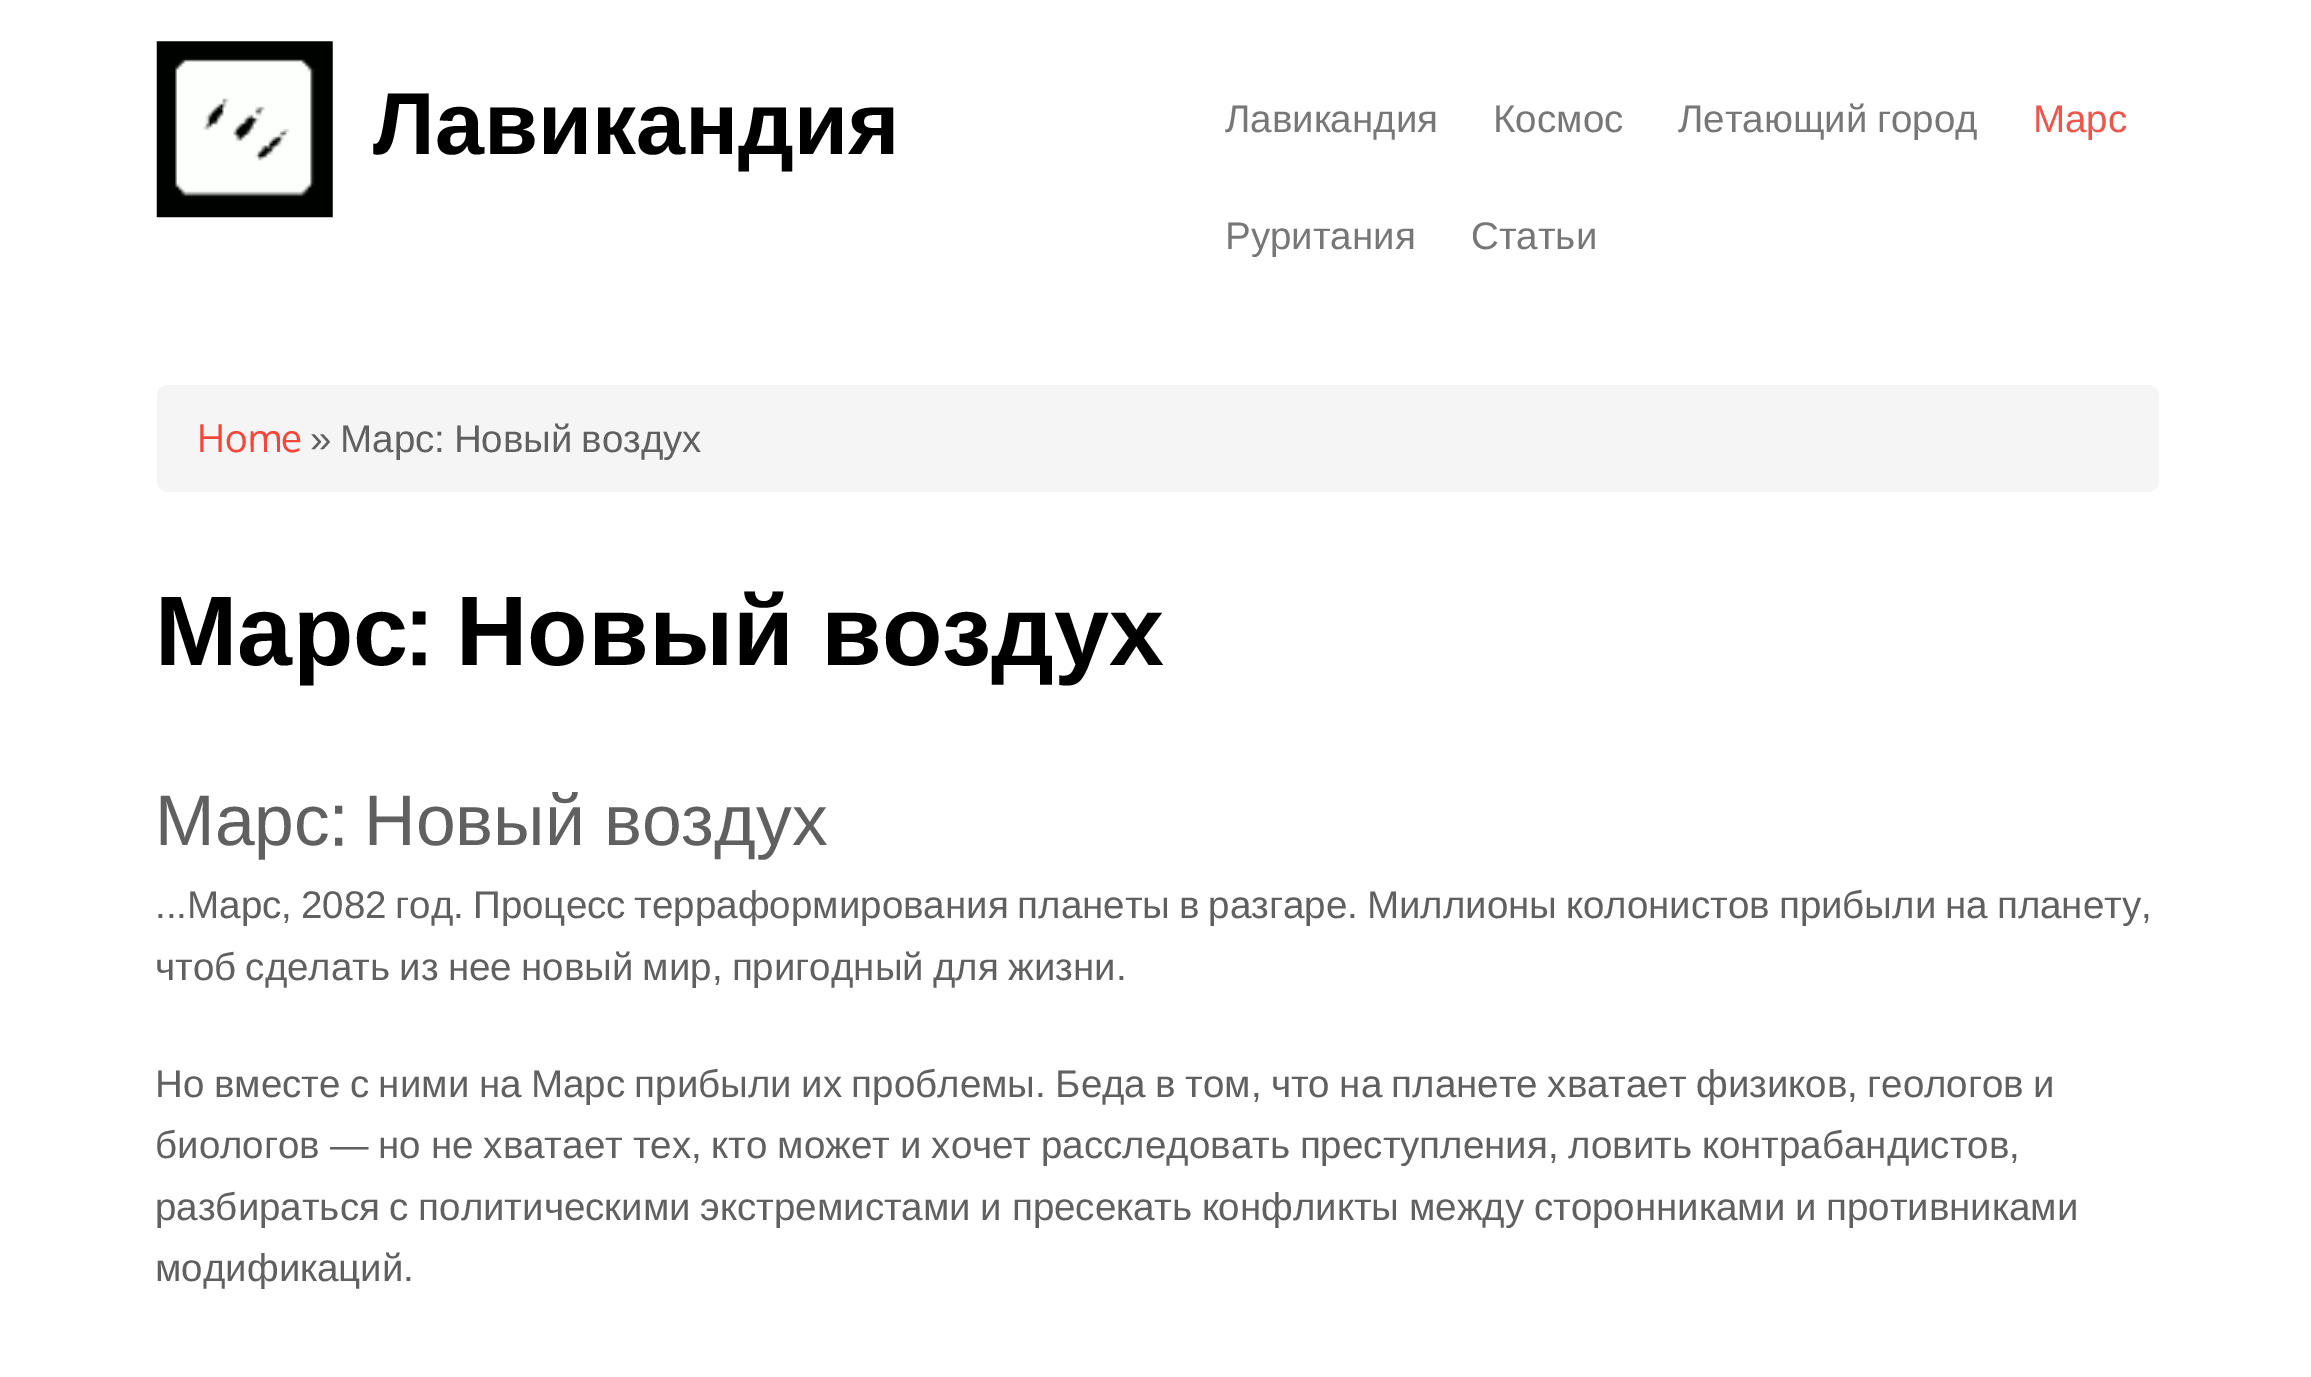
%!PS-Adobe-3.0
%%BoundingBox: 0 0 2311 1377
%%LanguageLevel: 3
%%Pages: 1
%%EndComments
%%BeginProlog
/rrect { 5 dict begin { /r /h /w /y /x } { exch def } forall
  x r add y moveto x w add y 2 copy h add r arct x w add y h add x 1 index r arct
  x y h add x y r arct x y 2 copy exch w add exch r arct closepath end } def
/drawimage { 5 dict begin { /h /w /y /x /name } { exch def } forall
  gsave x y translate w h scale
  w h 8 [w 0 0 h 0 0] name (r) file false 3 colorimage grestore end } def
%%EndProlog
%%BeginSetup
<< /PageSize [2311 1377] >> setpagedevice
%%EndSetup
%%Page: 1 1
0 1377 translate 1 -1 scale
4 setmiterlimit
1 setgray
0 0 2311 1377 rectfill
(images/1.raw) 156 41 177 177 drawimage
0.961 setgray
157 385 2002 107 11 rrect fill
/LiberationSans-Bold [88 0 0 -88 0 0] selectfont
0 setgray
373 154 moveto (Лавикандия) show
/LiberationSans-Regular [38.5 0 0 -38.5 0 0] selectfont
0.467 setgray
1225 132 moveto (Лавикандия) show
1493 132 moveto (Космос) show
1678 132 moveto -1 0 32 (Летающий город) widthshow
0.929 0.337 0.294 setrgbcolor
2033 132 moveto (Марс) show
0.467 setgray
1225 249 moveto (Руритания) show
1471 249 moveto (Статьи) show
/Oxygen-Regular [38.5 0 0 -38.5 0 0] selectfont
0.957 0.278 0.227 setrgbcolor
197 452 moveto (Home) show
/LiberationSans-Regular [38.5 0 0 -38.5 0 0] selectfont
0.376 setgray
310 452 moveto -2 0 32 (» Марс: Новый воздух) widthshow
/LiberationSans-Bold [99 0 0 -99 0 0] selectfont
0 setgray
155 665 moveto (Марс) show
/Oxygen-Bold [99 0 0 -99 0 0] selectfont
408 665 moveto (:) show
/LiberationSans-Bold [99 0 0 -99 0 0] selectfont
456 665 moveto -1 0 32 (Новый воздух) widthshow
/LiberationSans-Regular [71.5 0 0 -71.5 0 0] selectfont
0.376 setgray
155 845 moveto (Марс) show
/Oxygen-Regular [71.5 0 0 -71.5 0 0] selectfont
330 845 moveto (:) show
/LiberationSans-Regular [71.5 0 0 -71.5 0 0] selectfont
364 845 moveto -1 0 32 (Новый воздух) widthshow
/LiberationSans-Regular [38.5 0 0 -38.5 0 0] selectfont
155 918 moveto -1.75 0 32 (...Марс, 2082 год. Процесс терраформирования планеты в разгаре. Миллионы колонистов прибыли на планету,) widthshow
155 980 moveto -1.5 0 32 (чтоб сделать из нее новый мир, пригодный для жизни.) widthshow
155 1097 moveto -1.25 0 32 (Но вместе с ними на Марс прибыли их проблемы. Беда в том, что на планете хватает физиков, геологов и) widthshow
155 1158 moveto -0.75 0 32 (биологов — но не хватает тех, кто может и хочет расследовать преступления, ловить контрабандистов,) widthshow
155 1220 moveto -1 0 32 (разбираться с политическими экстремистами и пресекать конфликты между сторонниками и противниками) widthshow
155 1281 moveto (модификаций.) show
showpage
%%EOF
